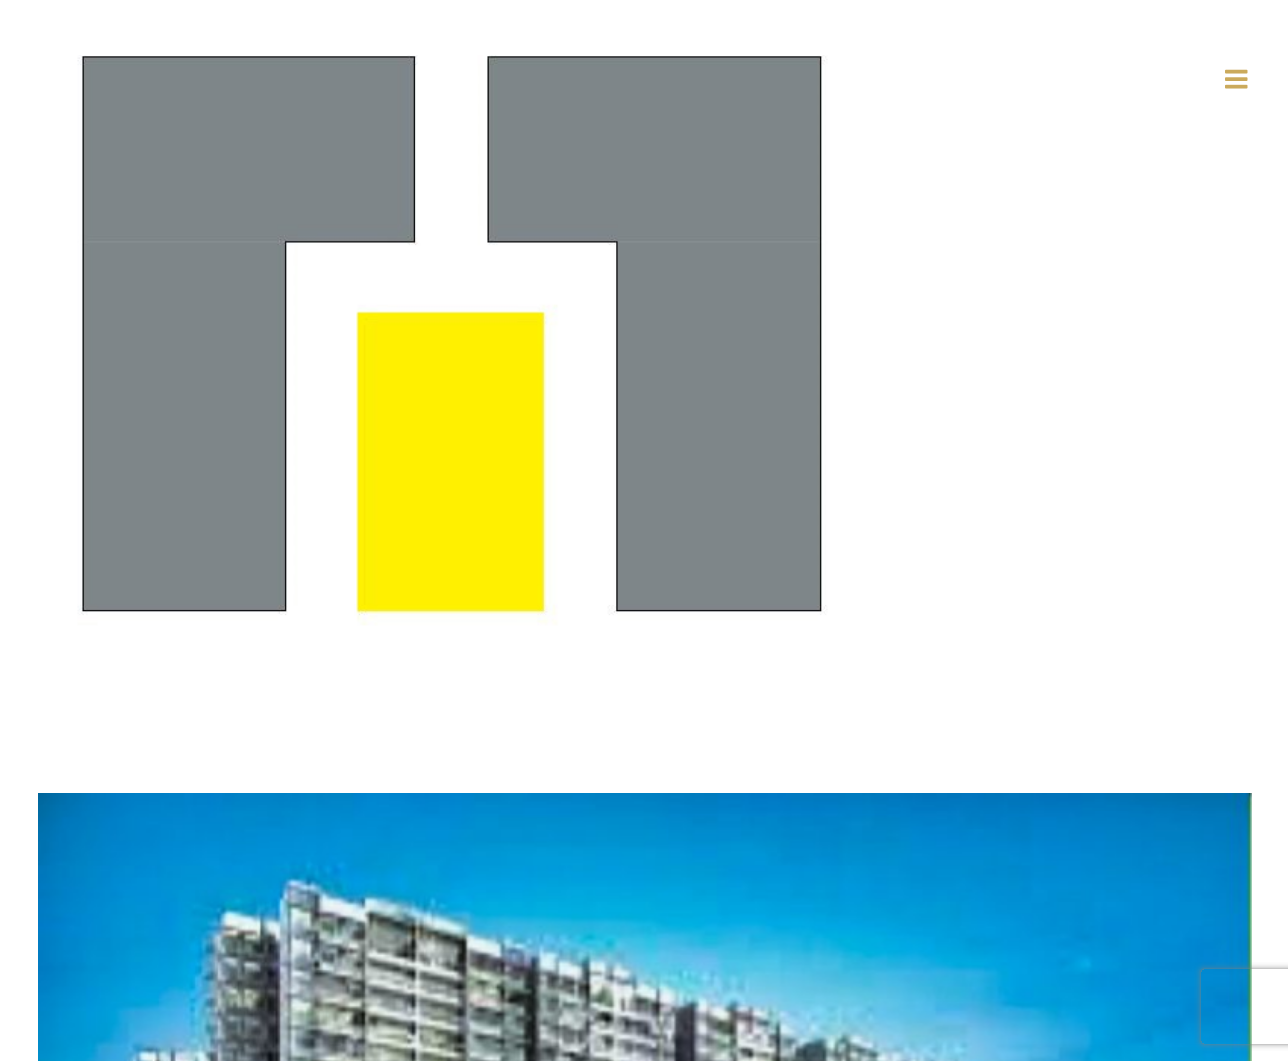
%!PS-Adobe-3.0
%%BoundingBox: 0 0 1288 1061
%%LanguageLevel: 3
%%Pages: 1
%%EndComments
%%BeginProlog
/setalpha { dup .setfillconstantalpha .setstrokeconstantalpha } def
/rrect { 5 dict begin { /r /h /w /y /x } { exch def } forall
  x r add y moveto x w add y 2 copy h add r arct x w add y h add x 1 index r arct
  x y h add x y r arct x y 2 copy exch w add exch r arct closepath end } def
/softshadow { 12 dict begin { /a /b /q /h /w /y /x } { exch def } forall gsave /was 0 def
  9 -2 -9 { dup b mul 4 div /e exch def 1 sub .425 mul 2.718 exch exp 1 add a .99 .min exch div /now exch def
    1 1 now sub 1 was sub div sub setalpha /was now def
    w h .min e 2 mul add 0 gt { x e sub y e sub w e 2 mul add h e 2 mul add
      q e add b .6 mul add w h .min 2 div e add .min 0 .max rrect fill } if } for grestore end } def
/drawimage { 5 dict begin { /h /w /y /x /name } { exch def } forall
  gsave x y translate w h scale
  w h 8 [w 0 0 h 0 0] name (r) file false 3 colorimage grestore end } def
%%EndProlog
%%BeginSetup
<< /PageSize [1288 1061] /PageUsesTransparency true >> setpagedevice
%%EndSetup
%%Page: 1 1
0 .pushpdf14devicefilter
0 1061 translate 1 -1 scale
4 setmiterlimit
1 setgray
0 0 1288 1061 rectfill
(images/1.raw) 77 55 751 571 drawimage
(images/2.raw) 1225 69 23 20 drawimage
(images/3.raw) 38 793 1214 268 drawimage
gsave
newpath 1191 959 moveto 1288 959 lineto 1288 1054 lineto 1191 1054 lineto closepath 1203.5 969 moveto 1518.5 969 lineto 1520 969 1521 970 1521 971.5 curveto 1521 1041.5 lineto 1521 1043 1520 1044 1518.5 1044 curveto 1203.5 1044 lineto 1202 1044 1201 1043 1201 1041.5 curveto 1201 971.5 lineto 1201 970 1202 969 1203.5 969 curveto closepath eoclip newpath
0.502 setgray
1201 969 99 75 2.5 3 1 softshadow
grestore
.poppdf14devicefilter showpage
%%EOF
